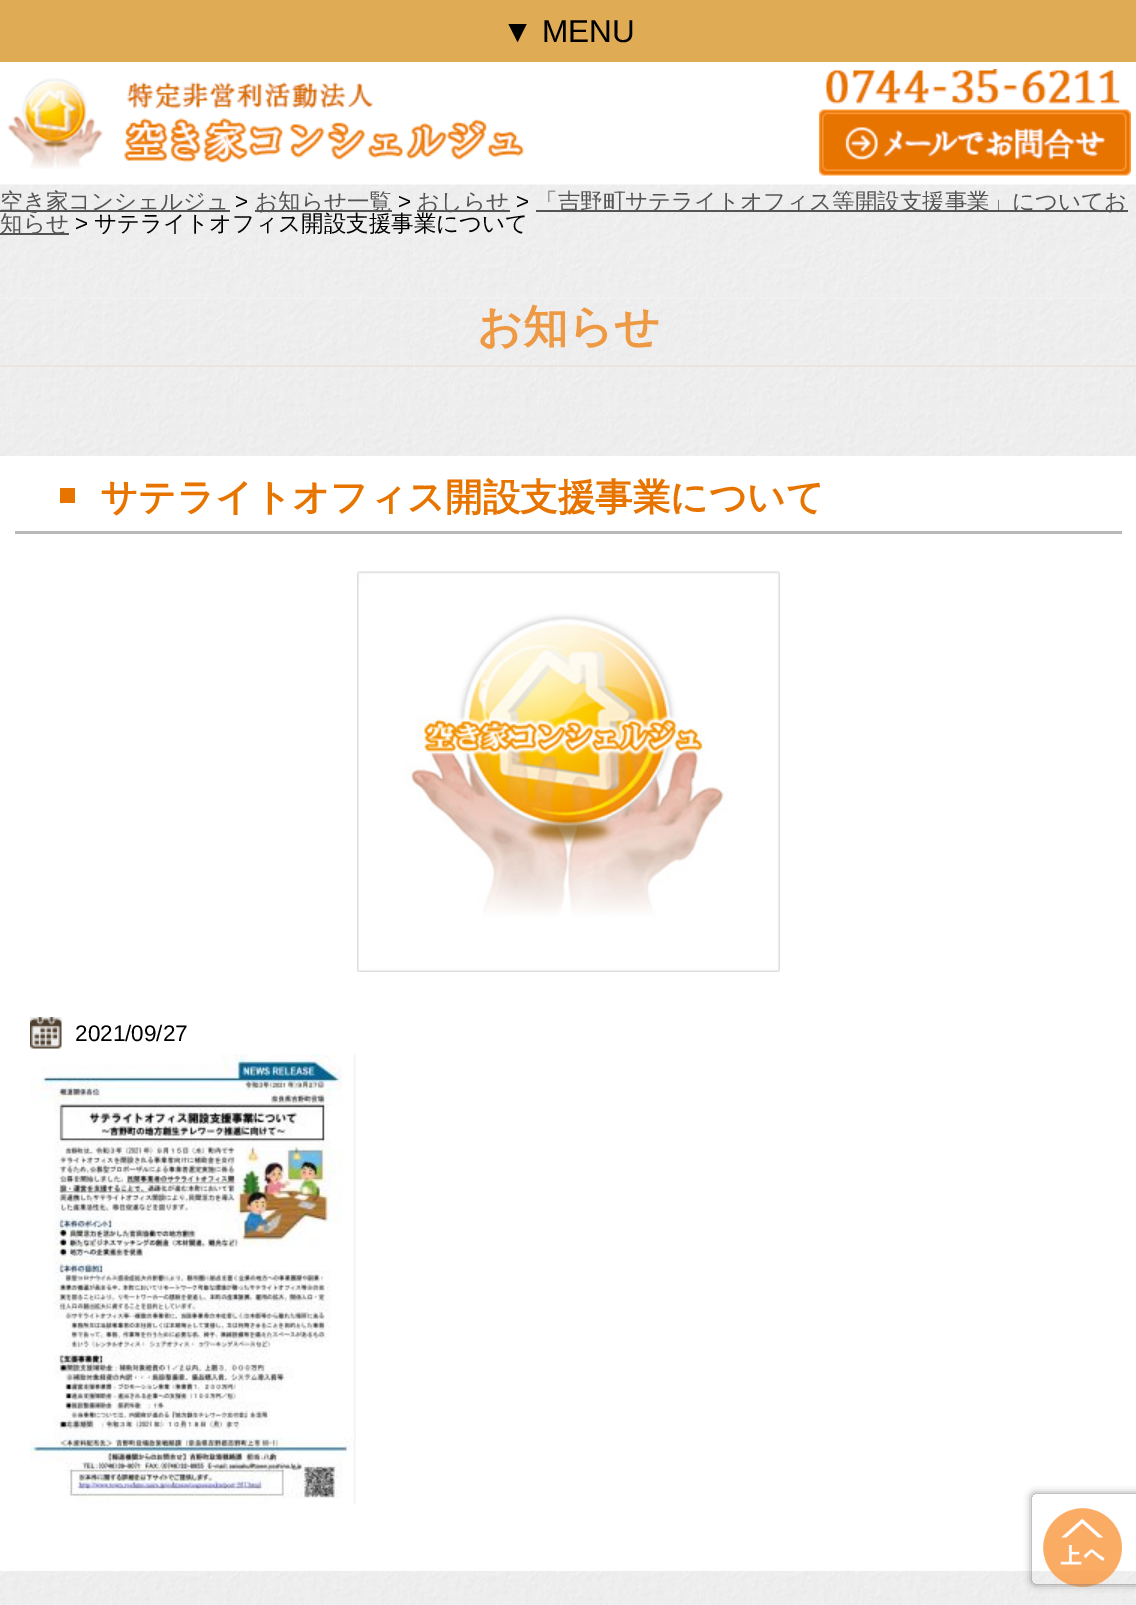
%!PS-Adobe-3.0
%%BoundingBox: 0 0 1136 1605
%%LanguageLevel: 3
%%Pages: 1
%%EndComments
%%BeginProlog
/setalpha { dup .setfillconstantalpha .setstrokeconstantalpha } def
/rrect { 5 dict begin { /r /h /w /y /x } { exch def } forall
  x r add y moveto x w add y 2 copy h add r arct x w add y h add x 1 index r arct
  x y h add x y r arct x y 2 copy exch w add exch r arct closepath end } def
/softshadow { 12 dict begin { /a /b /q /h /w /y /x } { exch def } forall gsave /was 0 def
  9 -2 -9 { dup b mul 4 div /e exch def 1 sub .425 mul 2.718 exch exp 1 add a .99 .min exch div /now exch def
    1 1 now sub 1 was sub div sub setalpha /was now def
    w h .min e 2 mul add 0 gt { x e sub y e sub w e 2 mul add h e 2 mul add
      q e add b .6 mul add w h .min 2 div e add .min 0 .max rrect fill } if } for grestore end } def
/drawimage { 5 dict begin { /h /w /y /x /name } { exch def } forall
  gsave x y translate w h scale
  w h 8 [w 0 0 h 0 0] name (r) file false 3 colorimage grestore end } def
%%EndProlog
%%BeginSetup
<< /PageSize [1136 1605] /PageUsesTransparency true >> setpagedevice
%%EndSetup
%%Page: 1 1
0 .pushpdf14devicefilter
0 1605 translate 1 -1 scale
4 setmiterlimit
1 setgray
0 0 1136 1605 rectfill
0.878 0.671 0.333 setrgbcolor
0 0 1136 62 rectfill
(images/1.raw) 7 78 517 91 drawimage
(images/2.raw) 819 69 312 107 drawimage
(images/3.raw) 0 184 1136 115 drawimage
0.329 setgray
0 210 230 2 rectfill
255 210 137 2 rectfill
417 210 93 2 rectfill
536 210 592 2 rectfill
0 233 69 2 rectfill
(images/4.raw) 0 298 1136 1307 drawimage
0.929 0.898 0.867 setrgbcolor
0 365 1136 2 rectfill
1 setgray
0 456 1136 1115 rectfill
0.722 setgray
15 531 1107 3 rectfill
0.91 0.455 0 setrgbcolor
60 488 15 15 rectfill
(images/5.raw) 357 571 423 401 drawimage
(images/6.raw) 30 1017 32 32 drawimage
(images/7.raw) 30 1054 326 451 drawimage
(images/8.raw) 1043 1508 79 79 drawimage
gsave
newpath 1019 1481 moveto 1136 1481 lineto 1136 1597 lineto 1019 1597 lineto closepath 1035 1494 moveto 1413 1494 lineto 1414.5 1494 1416 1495.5 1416 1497 curveto 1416 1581 lineto 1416 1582.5 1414.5 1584 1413 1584 curveto 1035 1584 lineto 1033.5 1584 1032 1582.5 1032 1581 curveto 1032 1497 lineto 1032 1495.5 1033.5 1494 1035 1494 curveto closepath eoclip newpath
0.502 setgray
1032 1494 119 90 3 4 1 softshadow
grestore
/LiberationSans-Regular [31.5 0 0 -31.5 0 0] selectfont
0 setgray
502 42 moveto (▼ MENU) show
/WenQuanYiZenHei-Medium [22.5 0 0 -22.5 0 0] selectfont
0.329 setgray
0 209 moveto (空き家コンシェルジュ) show
/LiberationSans-Regular [22.5 0 0 -22.5 0 0] selectfont
0 setgray
235 209 moveto (>) show
/WenQuanYiZenHei-Medium [22.5 0 0 -22.5 0 0] selectfont
0.329 setgray
255 209 moveto (お知らせ一覧) show
/LiberationSans-Regular [22.5 0 0 -22.5 0 0] selectfont
0 setgray
398 209 moveto (>) show
/WenQuanYiZenHei-Medium [22.5 0 0 -22.5 0 0] selectfont
0.329 setgray
417 209 moveto (おしらせ) show
/LiberationSans-Regular [22.5 0 0 -22.5 0 0] selectfont
0 setgray
516 209 moveto (>) show
/WenQuanYiZenHei-Medium [22.5 0 0 -22.5 0 0] selectfont
0.329 setgray
535 209 moveto (「吉野町サテライトオフィス等開設支援事業」についてお) show
0 231 moveto (知らせ) show
/LiberationSans-Regular [22.5 0 0 -22.5 0 0] selectfont
0 setgray
75 231 moveto (>) show
/WenQuanYiZenHei-Medium [22.5 0 0 -22.5 0 0] selectfont
94 231 moveto (サテライトオフィス開設支援事業について) show
/WenQuanYiZenHei-Bold [45 0 0 -45 0 0] selectfont
0.933 0.604 0.271 setrgbcolor
477 342 moveto (お知らせ) show
/WenQuanYiZenHei-Bold [37.5 0 0 -37.5 0 0] selectfont
0.91 0.455 0 setrgbcolor
100 510 moveto (サテライトオフィス開設支援事業について) show
/LiberationSans-Regular [22.5 0 0 -22.5 0 0] selectfont
0 setgray
75 1041 moveto (2021/09/27) show
.poppdf14devicefilter showpage
%%EOF
